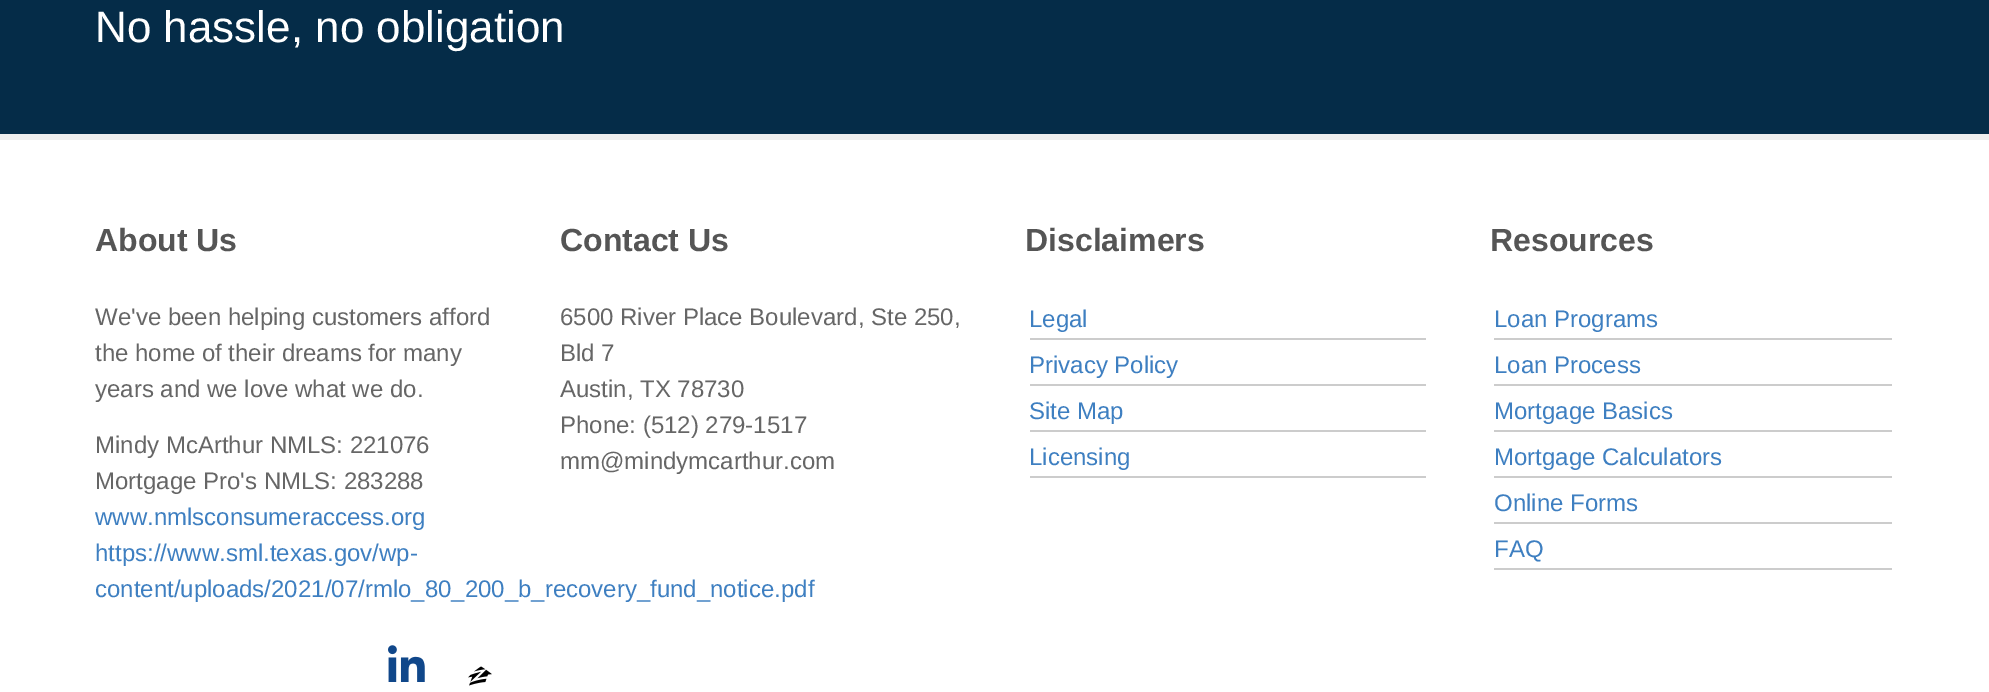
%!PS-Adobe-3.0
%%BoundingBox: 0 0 1989 692
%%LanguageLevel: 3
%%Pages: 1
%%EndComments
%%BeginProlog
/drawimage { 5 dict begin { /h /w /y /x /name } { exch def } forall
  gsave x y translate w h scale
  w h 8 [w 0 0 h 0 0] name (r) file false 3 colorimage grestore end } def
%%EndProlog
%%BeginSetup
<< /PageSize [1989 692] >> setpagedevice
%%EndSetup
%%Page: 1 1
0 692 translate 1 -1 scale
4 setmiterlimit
1 setgray
0 0 1989 692 rectfill
0.02 0.173 0.282 setrgbcolor
0 0 1989 134 rectfill
0.933 setgray
0 134 1989 6 rectfill
(images/1.raw) 388 645 37 37 drawimage
(images/2.raw) 468 666 24 20 drawimage
0.8 setgray
1030 338 396 2 rectfill
1030 384 396 2 rectfill
1030 430 396 2 rectfill
1030 476 396 2 rectfill
1494 338 398 2 rectfill
1494 384 398 2 rectfill
1494 430 398 2 rectfill
1494 476 398 2 rectfill
1494 522 398 2 rectfill
1494 568 398 2 rectfill
/LiberationSans-Regular [44 0 0 -44 0 0] selectfont
1 setgray
95 42 moveto (No hassle, no obligation) show
/LiberationSans-Bold [32 0 0 -32 0 0] selectfont
0.333 setgray
95 251 moveto (About Us) show
/LiberationSans-Regular [24 0 0 -24 0 0] selectfont
0.4 setgray
95 325 moveto (We've been helping customers afford) show
95 361 moveto (the home of their dreams for many) show
95 397 moveto (years and we love what we do.) show
95 453 moveto (Mindy McArthur NMLS: 221076) show
95 489 moveto (Mortgage Pro's NMLS: 283288) show
0.243 0.498 0.757 setrgbcolor
95 525 moveto (www.nmlsconsumeraccess.org) show
95 561 moveto (https://www.sml.texas.gov/wp-) show
95 597 moveto (content/uploads/2021/07/rmlo_80_200_b_recovery_fund_notice.pdf) show
/LiberationSans-Bold [32 0 0 -32 0 0] selectfont
0.333 setgray
1025 251 moveto (Disclaimers) show
/LiberationSans-Regular [24 0 0 -24 0 0] selectfont
0.243 0.498 0.757 setrgbcolor
1029 327 moveto (Legal) show
1029 373 moveto (Privacy Policy) show
1029 419 moveto (Site Map) show
1029 465 moveto (Licensing) show
/LiberationSans-Bold [32 0 0 -32 0 0] selectfont
0.333 setgray
560 251 moveto (Contact Us) show
/LiberationSans-Regular [24 0 0 -24 0 0] selectfont
0.4 setgray
560 325 moveto (6500 River Place Boulevard, Ste 250,) show
560 361 moveto (Bld 7) show
560 397 moveto (Austin, TX 78730) show
560 433 moveto (Phone: \(512\) 279-1517) show
560 469 moveto (mm@mindymcarthur.com) show
/LiberationSans-Bold [32 0 0 -32 0 0] selectfont
0.333 setgray
1490 251 moveto (Resources) show
/LiberationSans-Regular [24 0 0 -24 0 0] selectfont
0.243 0.498 0.757 setrgbcolor
1494 327 moveto (Loan Programs) show
1494 373 moveto (Loan Process) show
1494 419 moveto (Mortgage Basics) show
1494 465 moveto (Mortgage Calculators) show
1494 511 moveto (Online Forms) show
1494 557 moveto (FAQ) show
showpage
%%EOF
